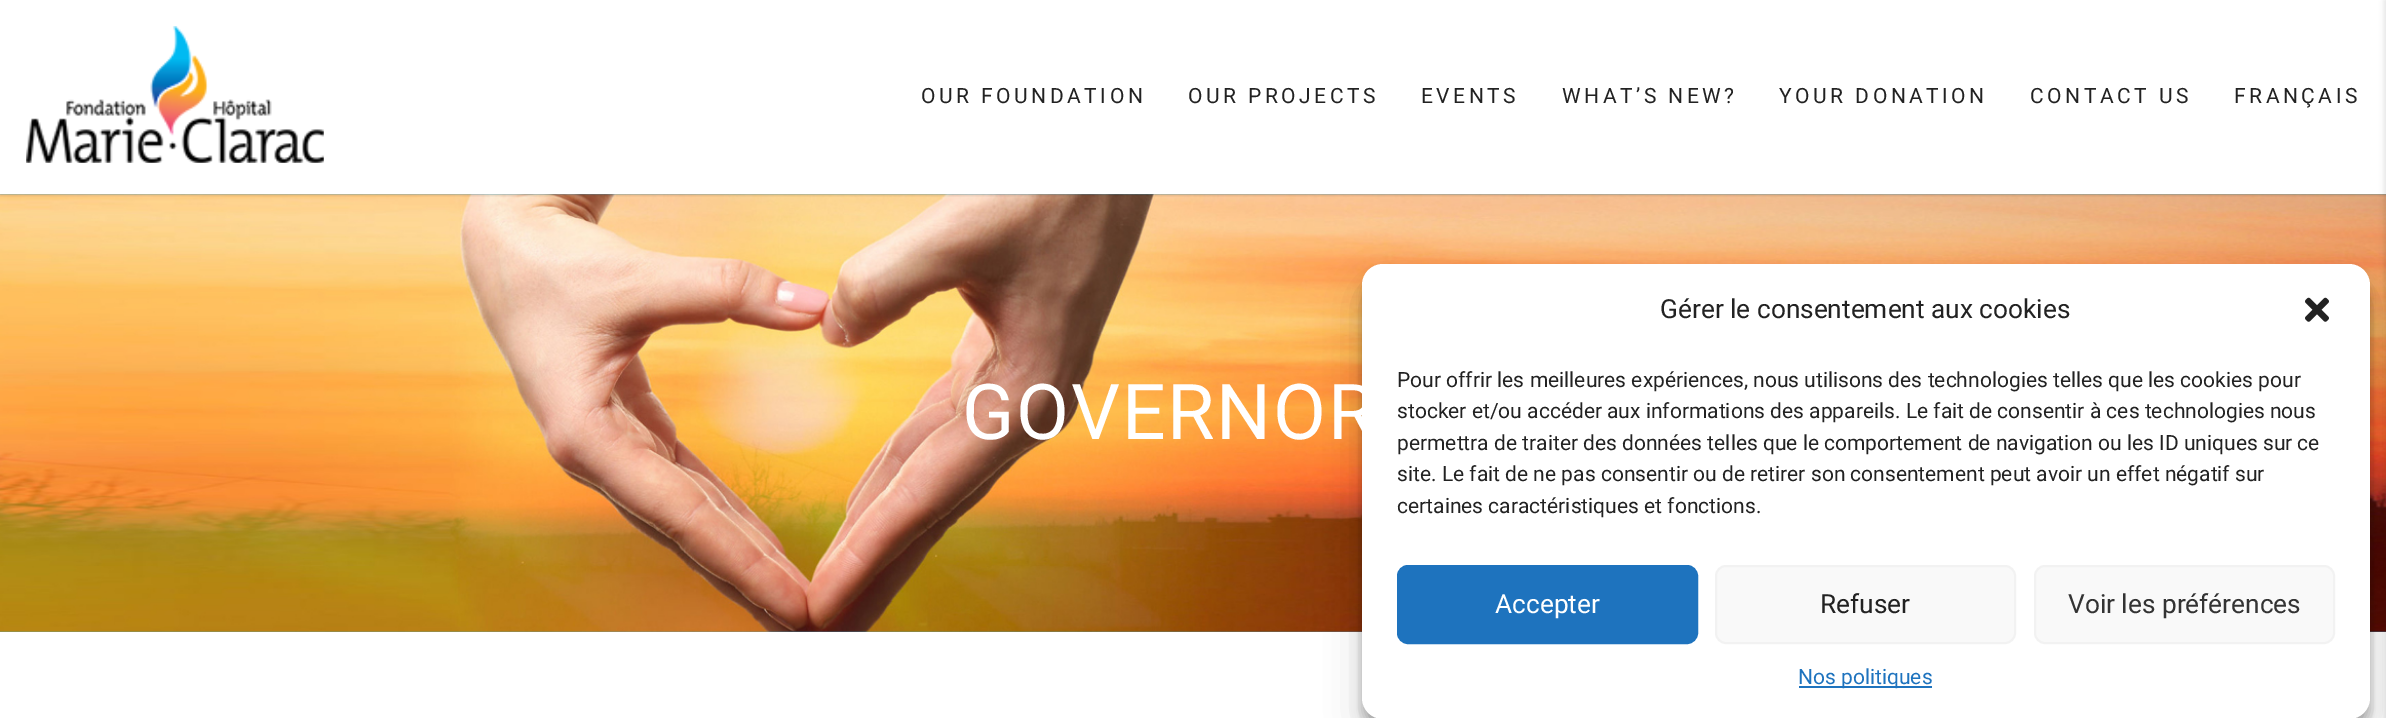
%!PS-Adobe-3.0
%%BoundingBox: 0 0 2386 718
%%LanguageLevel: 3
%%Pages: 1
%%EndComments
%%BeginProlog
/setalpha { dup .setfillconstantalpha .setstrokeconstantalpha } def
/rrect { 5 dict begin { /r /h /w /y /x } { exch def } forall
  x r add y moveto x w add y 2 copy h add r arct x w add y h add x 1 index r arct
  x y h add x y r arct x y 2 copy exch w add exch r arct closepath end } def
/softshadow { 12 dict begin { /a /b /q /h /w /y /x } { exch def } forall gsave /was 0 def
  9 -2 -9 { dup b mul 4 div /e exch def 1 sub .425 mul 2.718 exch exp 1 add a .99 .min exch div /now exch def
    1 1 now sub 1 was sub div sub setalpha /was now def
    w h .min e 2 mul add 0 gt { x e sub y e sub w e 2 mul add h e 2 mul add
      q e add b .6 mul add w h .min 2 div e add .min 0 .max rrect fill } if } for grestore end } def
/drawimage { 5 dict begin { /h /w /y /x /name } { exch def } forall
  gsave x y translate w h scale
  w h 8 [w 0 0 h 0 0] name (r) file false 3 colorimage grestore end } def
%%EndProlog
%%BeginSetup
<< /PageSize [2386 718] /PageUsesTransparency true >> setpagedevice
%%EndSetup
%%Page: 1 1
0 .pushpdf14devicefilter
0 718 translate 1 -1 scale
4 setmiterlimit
1 setgray
0 0 2386 718 rectfill
(images/2.raw) 0 194 2386 438 drawimage
gsave
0 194 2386 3 rectclip
0 setgray
0 2 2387 194 0 1 0.1 softshadow
grestore
(images/1.raw) 26 26 298 137 drawimage
0 setgray
2384 0 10 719 0 2.5 0.1 softshadow
1362 275 1008 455 21 5 0.23 softshadow
1362 282 1008 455 21 17.5 0.19 softshadow
1 setgray
1362 264 1008 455 21 rrect fill
(images/3.raw) 2305 297 24 25 drawimage
0.118 0.451 0.745 setrgbcolor
1398 566 299 77 10 rrect gsave fill grestore
2 setlinewidth
stroke
0.976 setgray
1716 566 299 77 10 rrect gsave fill grestore
0.949 setgray
stroke
0.976 setgray
2035 566 299 77 10 rrect gsave fill grestore
0.949 setgray
stroke
0.118 0.451 0.745 setrgbcolor
1799 686 133 2 rectfill
/Roboto-Regular [21 0 0 -21 0 0] selectfont
0.133 setgray
921 103 moveto 3.5 0 (OUR FOUNDATION) ashow
1188 103 moveto 3.5 0 (OUR PROJECTS) ashow
1421 103 moveto 3.5 0 (EVENTS) ashow
1562 103 moveto 3.5 0 (WHAT’S NEW?) ashow
1779 103 moveto 3.5 0 (YOUR DONATION) ashow
2030 103 moveto 3.5 0 (CONTACT US) ashow
2234 103 moveto 3.5 0 (FRANÇAIS) ashow
/Roboto-Regular [77 0 0 -77 0 0] selectfont
1 setgray
962 439 moveto 1.75 0 (GOVERNOR) ashow
/Roboto-Regular [26.25 0 0 -26.25 0 0] selectfont
0.133 setgray
1660 318 moveto (Gérer le consentement aux cookies) show
/Roboto-Regular [21 0 0 -21 0 0] selectfont
1397 387 moveto (Pour offrir les meilleures expériences, nous utilisons des technologies telles que les cookies pour) show
1397 418 moveto (stocker et/ou accéder aux informations des appareils. Le fait de consentir à ces technologies nous) show
1397 450 moveto (permettra de traiter des données telles que le comportement de navigation ou les ID uniques sur ce) show
1397 481 moveto (site. Le fait de ne pas consentir ou de retirer son consentement peut avoir un effet négatif sur) show
1397 513 moveto (certaines caractéristiques et fonctions.) show
/Roboto-Regular [26.25 0 0 -26.25 0 0] selectfont
1 setgray
1495 613 moveto (Accepter) show
0.133 setgray
1820 613 moveto (Refuser) show
0.2 setgray
2068 613 moveto (Voir les préférences) show
/Roboto-Regular [21 0 0 -21 0 0] selectfont
0.118 0.451 0.745 setrgbcolor
1798 684 moveto (Nos politiques) show
.poppdf14devicefilter showpage
%%EOF
